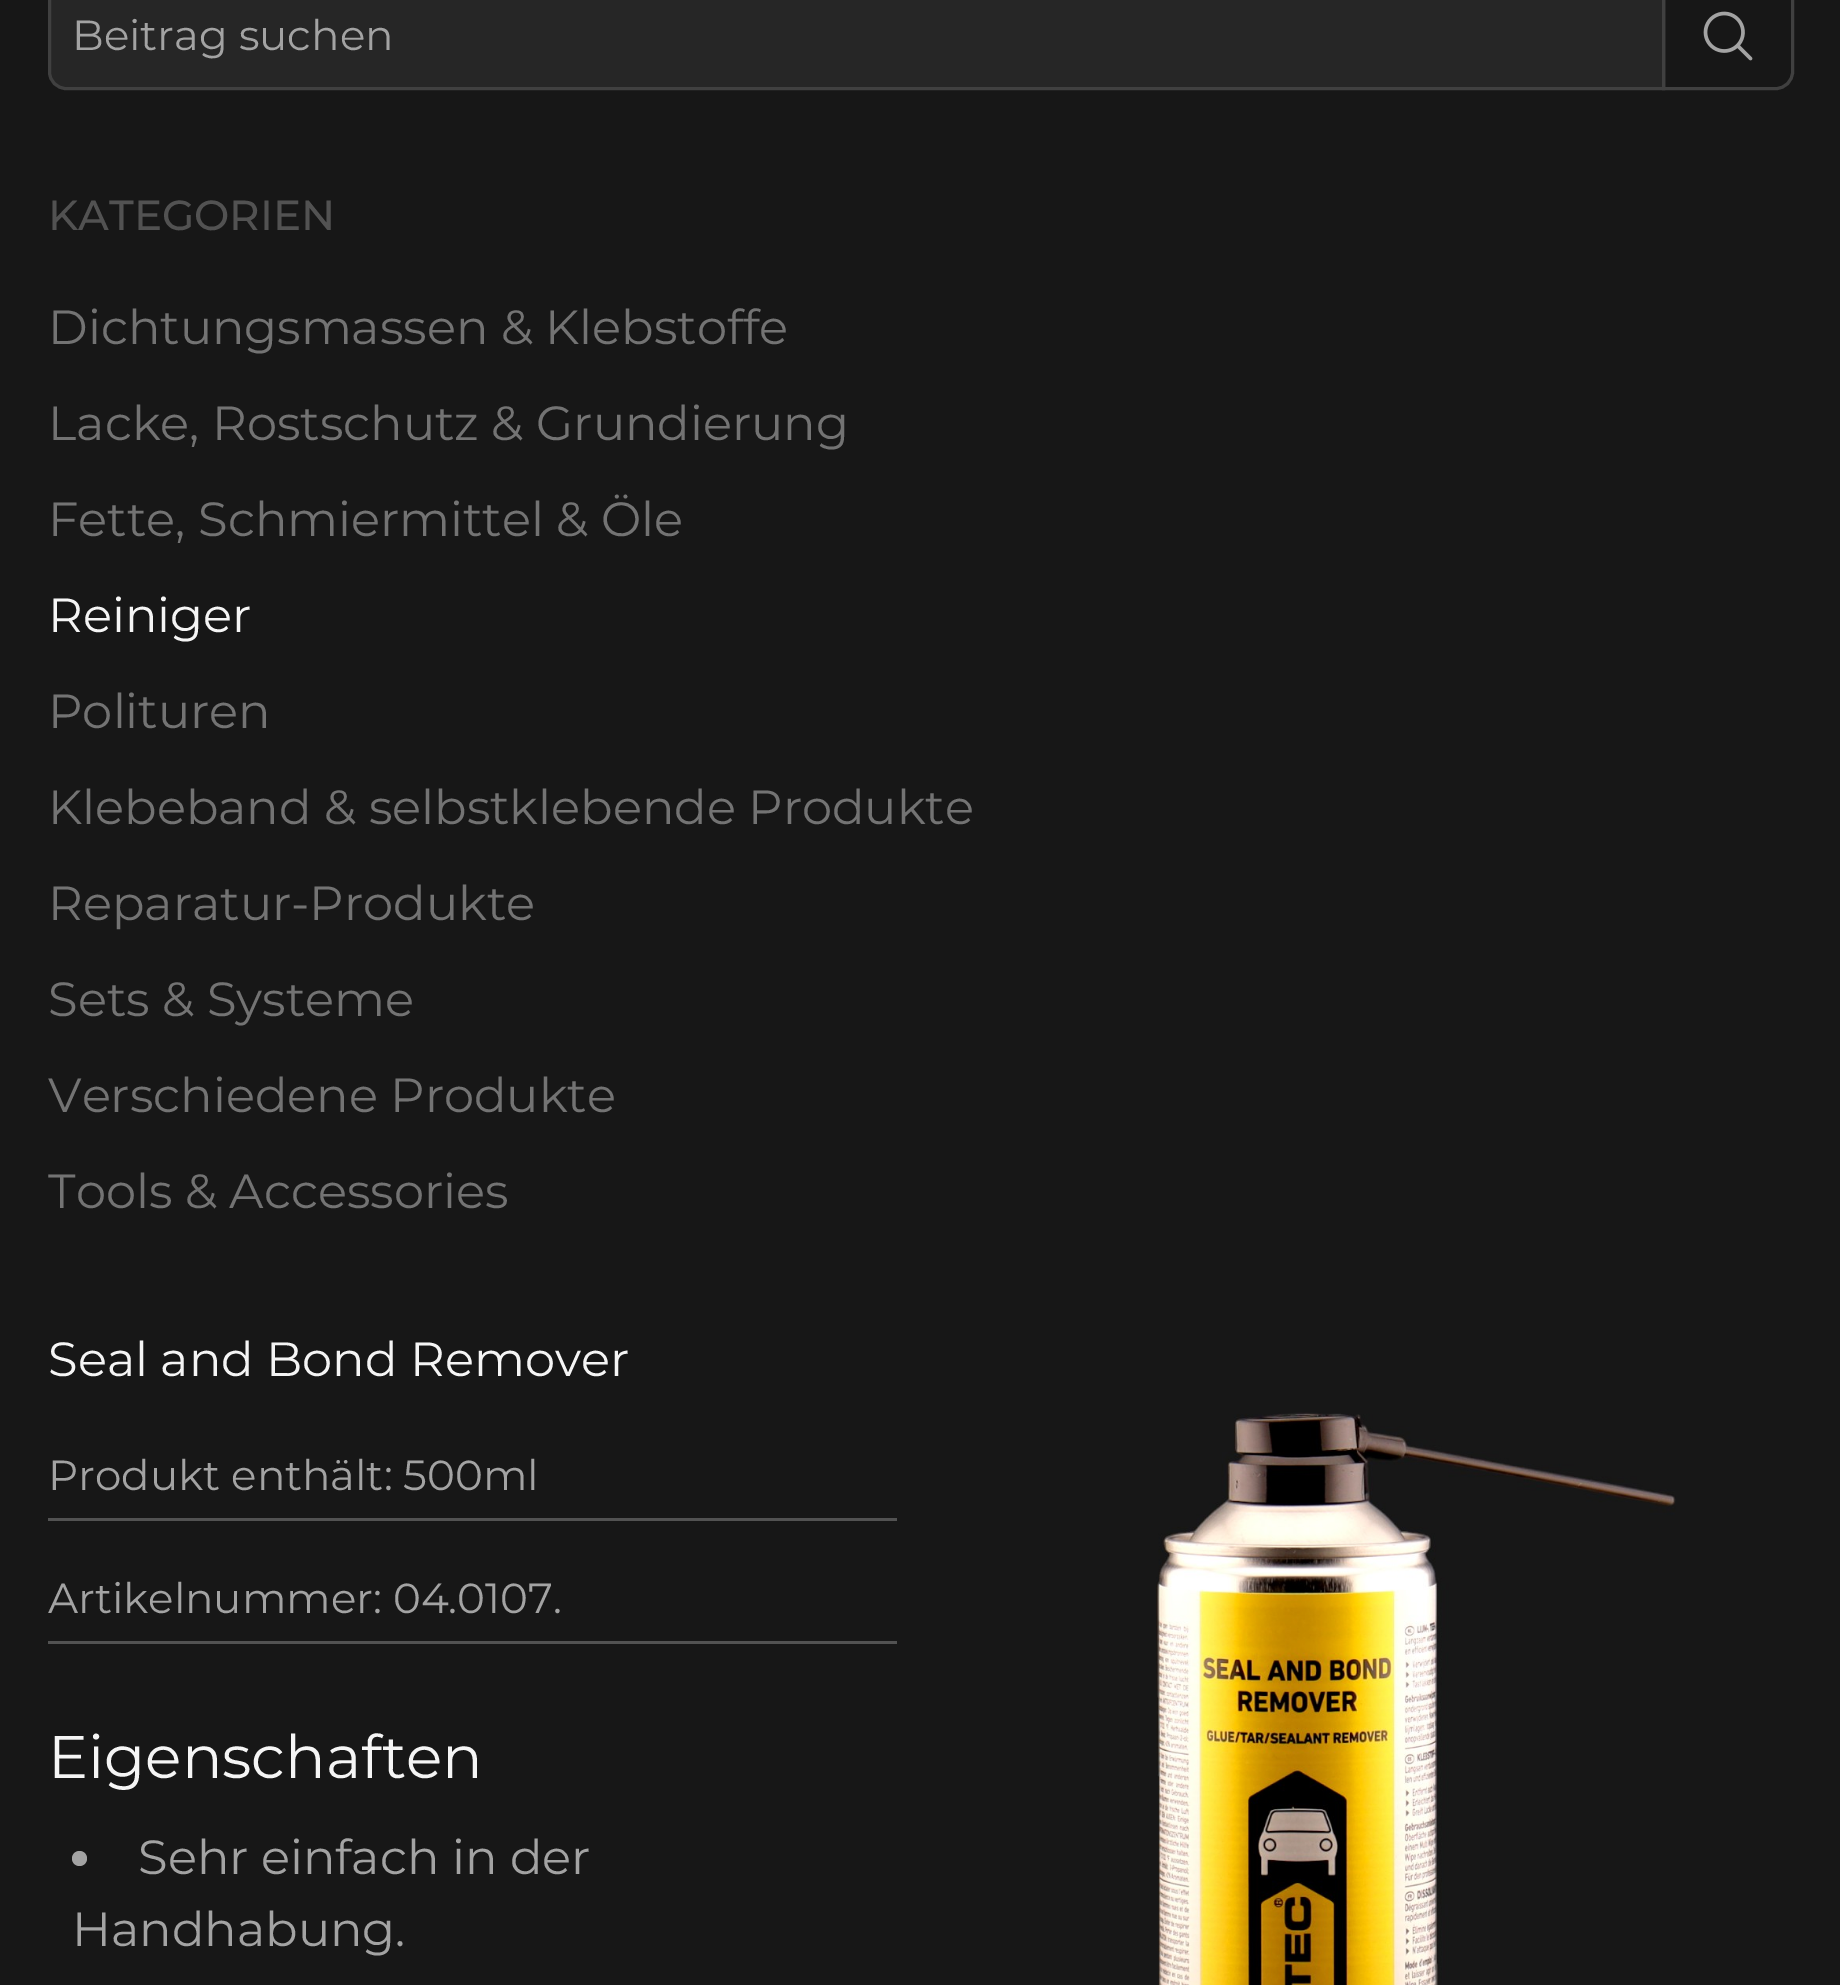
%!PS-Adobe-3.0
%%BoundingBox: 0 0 1840 1985
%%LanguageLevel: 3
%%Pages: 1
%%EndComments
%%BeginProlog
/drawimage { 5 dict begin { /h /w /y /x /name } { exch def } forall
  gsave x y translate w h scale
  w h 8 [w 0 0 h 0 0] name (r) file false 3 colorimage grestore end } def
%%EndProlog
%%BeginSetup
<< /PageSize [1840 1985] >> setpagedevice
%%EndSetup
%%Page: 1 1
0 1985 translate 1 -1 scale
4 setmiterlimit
0.09 setgray
0 0 1840 1985 rectfill
0.149 setgray
newpath 66 -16.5 moveto 1663.5 -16.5 lineto 1663.5 88.5 lineto 66 88.5 lineto 57 88.5 49.5 81 49.5 72 curveto 49.5 0 lineto 49.5 -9 57 -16.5 66 -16.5 curveto closepath gsave fill grestore
0.251 setgray
3 setlinewidth
stroke
newpath 1663.5 -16.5 moveto 1776 -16.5 lineto 1785 -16.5 1792.5 -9 1792.5 0 curveto 1792.5 72 lineto 1792.5 81 1785 88.5 1776 88.5 curveto 1663.5 88.5 lineto closepath stroke
(images/1.raw) 1703 11 50 50 drawimage
0.322 setgray
48 1518 849 3 rectfill
48 1641 849 3 rectfill
0.639 setgray
newpath 79.5 1858.5 7.5 0 360 arc closepath fill
(images/2.raw) 1156 1412 520 573 drawimage
/Montserrat-Regular [42 0 0 -42 0 0] selectfont
72 50 moveto (Beitrag suchen) show
/Montserrat-Medium [42 0 0 -42 0 0] selectfont
0.322 setgray
48 230 moveto (KATEGORIEN) show
/Montserrat-Regular [48 0 0 -48 0 0] selectfont
0.451 setgray
48 344 moveto (Dichtungsmassen & Klebstoffe) show
48 440 moveto (Lacke, Rostschutz & Grundierung) show
48 536 moveto (Fette, Schmiermittel & Öle) show
0.961 setgray
48 632 moveto (Reiniger) show
0.451 setgray
48 728 moveto (Polituren) show
48 824 moveto (Klebeband & selbstklebende Produkte) show
48 920 moveto (Reparatur-Produkte) show
48 1016 moveto (Sets & Systeme) show
48 1112 moveto (Verschiedene Produkte) show
48 1208 moveto (Tools & Accessories) show
0.961 setgray
48 1376 moveto (Seal and Bond Remover) show
/Montserrat-Regular [42 0 0 -42 0 0] selectfont
0.639 setgray
48 1490 moveto (Produkt enthält: 500ml) show
48 1613 moveto (Artikelnummer: 04.0107.) show
/Montserrat-Regular [60 0 0 -60 0 0] selectfont
0.961 setgray
48 1778 moveto (Eigenschaften) show
/Montserrat-Regular [48 0 0 -48 0 0] selectfont
0.639 setgray
138 1874 moveto (Sehr einfach in der) show
72 1946 moveto (Handhabung.) show
showpage
%%EOF
